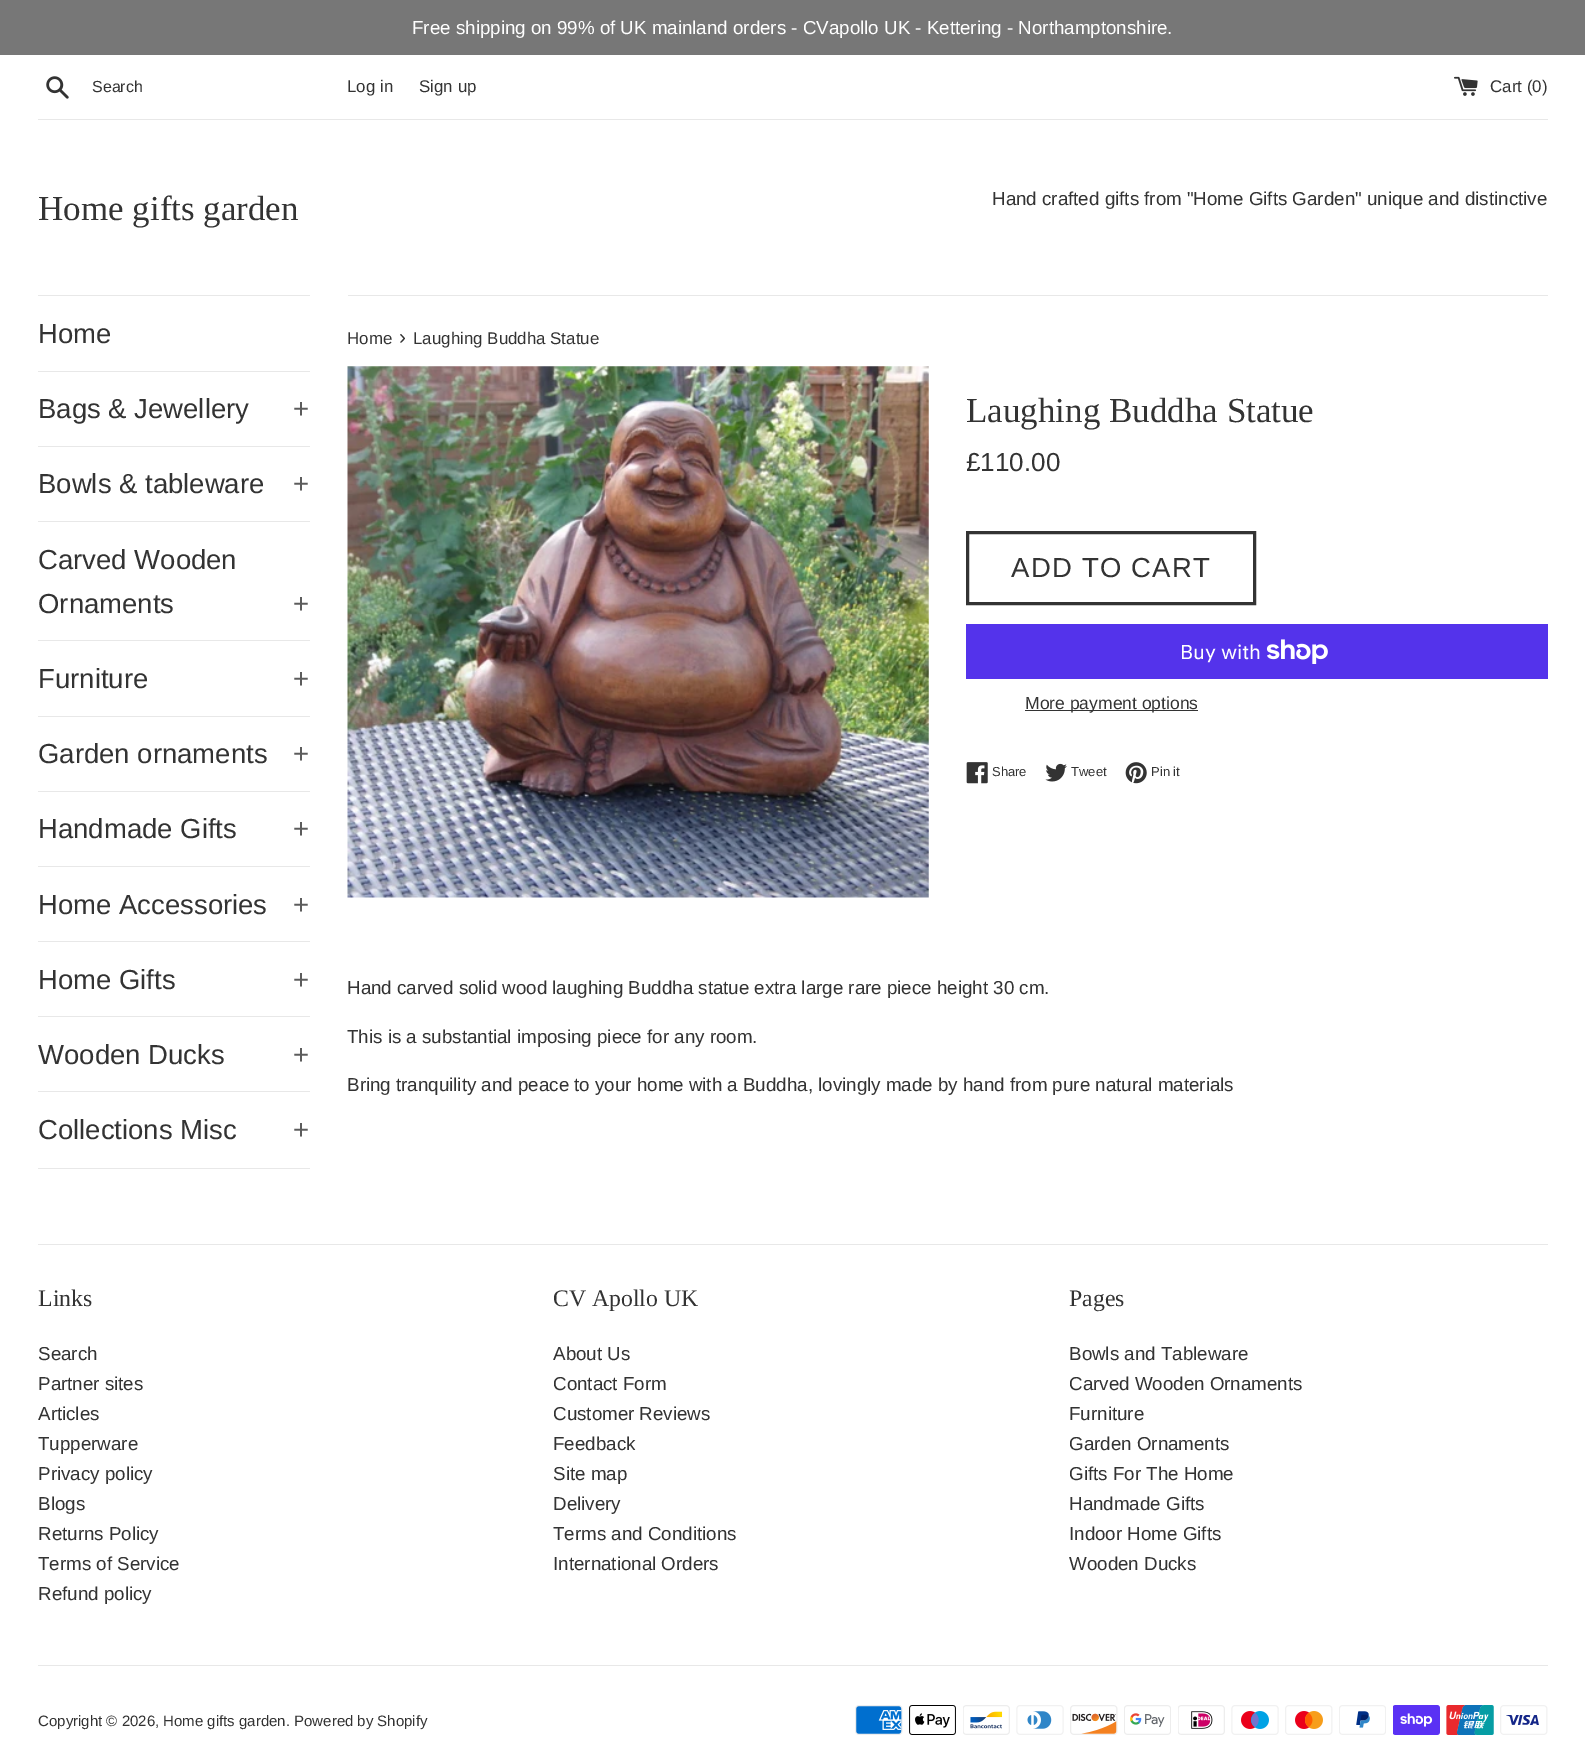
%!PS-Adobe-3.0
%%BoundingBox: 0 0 1585 1750
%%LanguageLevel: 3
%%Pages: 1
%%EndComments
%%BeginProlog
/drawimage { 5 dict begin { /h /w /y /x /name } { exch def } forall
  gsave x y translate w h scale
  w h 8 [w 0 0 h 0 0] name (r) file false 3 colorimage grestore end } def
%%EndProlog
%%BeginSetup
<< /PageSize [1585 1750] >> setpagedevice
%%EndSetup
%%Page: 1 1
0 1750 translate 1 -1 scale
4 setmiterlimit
1 setgray
0 0 1585 1750 rectfill
0.467 setgray
0 0 1585 55 rectfill
(images/1.raw) 46 76 23 23 drawimage
(images/2.raw) 1454 76 24 20 drawimage
0.91 setgray
38 119 1510 1 rectfill
38 295 272 1 rectfill
38 371 272 1 rectfill
38 446 272 1 rectfill
38 521 272 1 rectfill
38 640 272 1 rectfill
38 716 272 1 rectfill
38 791 272 1 rectfill
38 866 272 1 rectfill
38 941 272 1 rectfill
38 1016 272 1 rectfill
38 1091 272 1 rectfill
38 1168 272 1 rectfill
348 295 1200 1 rectfill
(images/3.raw) 347 366 582 532 drawimage
0.2 setgray
3 setlinewidth
967.5 532.5 287 71 rectstroke
0.329 0.2 0.922 setrgbcolor
966 624 582 55 rectfill
(images/4.raw) 1266 639 62 25 drawimage
0.2 setgray
1025 710 173 1 rectfill
(images/5.raw) 966 762 22 22 drawimage
(images/6.raw) 1045 763 22 19 drawimage
(images/7.raw) 1125 762 22 22 drawimage
0.91 setgray
38 1244 1510 1 rectfill
38 1665 1510 1 rectfill
(images/8.raw) 855 1705 48 30 drawimage
(images/9.raw) 909 1705 47 30 drawimage
(images/10.raw) 963 1705 47 30 drawimage
(images/11.raw) 1016 1705 48 30 drawimage
(images/12.raw) 1070 1705 48 30 drawimage
(images/13.raw) 1124 1705 47 30 drawimage
(images/14.raw) 1178 1705 47 30 drawimage
(images/15.raw) 1231 1705 48 30 drawimage
(images/16.raw) 1285 1705 48 30 drawimage
(images/17.raw) 1339 1705 47 30 drawimage
(images/18.raw) 1393 1705 47 30 drawimage
(images/19.raw) 1446 1705 48 30 drawimage
(images/20.raw) 1500 1705 48 30 drawimage
/LiberationSans-Regular [18.75 0 0 -18.75 0 0] selectfont
1 setgray
412 34 moveto (Free shipping on 99% of UK mainland orders - CVapollo UK - Kettering - Northamptonshire.) show
/LiberationSans-Regular [16 0 0 -16 0 0] selectfont
0.2 setgray
92 92 moveto (Search) show
/LiberationSans-Regular [16.9 0 0 -16.9 0 0] selectfont
347 92 moveto (Log in) show
419 92 moveto (Sign up) show
1490 92 moveto (Cart \(0\)) show
/LiberationSerif-Regular [35 0 0 -35 0 0] selectfont
38 220 moveto (Home gifts garden) show
/LiberationSans-Regular [18.75 0 0 -18.75 0 0] selectfont
992 205 moveto (Hand crafted gifts from "Home Gifts Garden" unique and distinctive) show
/LiberationSans-Regular [27.5 0 0 -27.5 0 0] selectfont
38 343 moveto (Home) show
38 418 moveto (Bags & Jewellery) show
0.361 setgray
293 418 moveto (+) show
0.2 setgray
38 493 moveto (Bowls & tableware) show
0.361 setgray
293 493 moveto (+) show
0.2 setgray
38 569 moveto (Carved Wooden) show
38 613 moveto (Ornaments) show
0.361 setgray
293 613 moveto (+) show
0.2 setgray
38 688 moveto (Furniture) show
0.361 setgray
293 688 moveto (+) show
0.2 setgray
38 763 moveto (Garden ornaments) show
0.361 setgray
293 763 moveto (+) show
0.2 setgray
38 838 moveto (Handmade Gifts) show
0.361 setgray
293 838 moveto (+) show
0.2 setgray
38 914 moveto (Home Accessories) show
0.361 setgray
293 914 moveto (+) show
0.2 setgray
38 989 moveto (Home Gifts) show
0.361 setgray
293 989 moveto (+) show
0.2 setgray
38 1064 moveto (Wooden Ducks) show
0.361 setgray
293 1064 moveto (+) show
0.2 setgray
38 1139 moveto (Collections Misc) show
0.361 setgray
293 1139 moveto (+) show
/LiberationSans-Regular [16.9 0 0 -16.9 0 0] selectfont
0.2 setgray
347 344 moveto (Home) show
/LiberationSans-Regular [21 0 0 -21 0 0] selectfont
399 344 moveto (›) show
/LiberationSans-Regular [16.9 0 0 -16.9 0 0] selectfont
413 344 moveto (Laughing Buddha Statue) show
/LiberationSerif-Regular [35 0 0 -35 0 0] selectfont
966 422 moveto (Laughing Buddha Statue) show
/LiberationSans-Regular [26 0 0 -26 0 0] selectfont
966 471 moveto (£110.00) show
/LiberationSans-Regular [27.5 0 0 -27.5 0 0] selectfont
1011 577 moveto 1.25 0 (ADD TO CART) ashow
/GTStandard-Regular [20 0 0 -20 0 0] selectfont
1 setgray
1180 659 moveto (Buy with) show
/LiberationSans-Regular [17.5 0 0 -17.5 0 0] selectfont
0.2 setgray
1025 709 moveto (More payment options) show
/LiberationSans-Regular [13 0 0 -13 0 0] selectfont
992 776 moveto (Share) show
1071 776 moveto (Tweet) show
1151 776 moveto (Pin it) show
/LiberationSans-Regular [18.75 0 0 -18.75 0 0] selectfont
347 994 moveto (Hand carved solid wood laughing Buddha statue extra large rare piece height 30 cm.) show
347 1043 moveto (This is a substantial imposing piece for any room.) show
347 1091 moveto (Bring tranquility and peace to your home with a Buddha, lovingly made by hand from pure natural materials) show
/LiberationSerif-Regular [23.75 0 0 -23.75 0 0] selectfont
38 1306 moveto (Links) show
/LiberationSans-Regular [18.75 0 0 -18.75 0 0] selectfont
38 1360 moveto (Search) show
38 1390 moveto (Partner sites) show
38 1420 moveto (Articles) show
38 1450 moveto (Tupperware) show
38 1480 moveto (Privacy policy) show
38 1510 moveto (Blogs) show
38 1540 moveto (Returns Policy) show
38 1570 moveto (Terms of Service) show
38 1600 moveto (Refund policy) show
/LiberationSerif-Regular [23.75 0 0 -23.75 0 0] selectfont
553 1306 moveto (CV Apollo UK) show
/LiberationSans-Regular [18.75 0 0 -18.75 0 0] selectfont
553 1360 moveto (About Us) show
553 1390 moveto (Contact Form) show
553 1420 moveto (Customer Reviews) show
553 1450 moveto (Feedback) show
553 1480 moveto (Site map) show
553 1510 moveto (Delivery) show
553 1540 moveto (Terms and Conditions) show
553 1570 moveto (International Orders) show
/LiberationSerif-Regular [23.75 0 0 -23.75 0 0] selectfont
1069 1306 moveto (Pages) show
/LiberationSans-Regular [18.75 0 0 -18.75 0 0] selectfont
1069 1360 moveto (Bowls and Tableware) show
1069 1390 moveto (Carved Wooden Ornaments) show
1069 1420 moveto (Furniture) show
1069 1450 moveto (Garden Ornaments) show
1069 1480 moveto (Gifts For The Home) show
1069 1510 moveto (Handmade Gifts) show
1069 1540 moveto (Indoor Home Gifts) show
1069 1570 moveto (Wooden Ducks) show
/LiberationSans-Regular [15 0 0 -15 0 0] selectfont
38 1726 moveto (Copyright © 2026, Home gifts garden. Powered by Shopify) show
showpage
%%EOF
